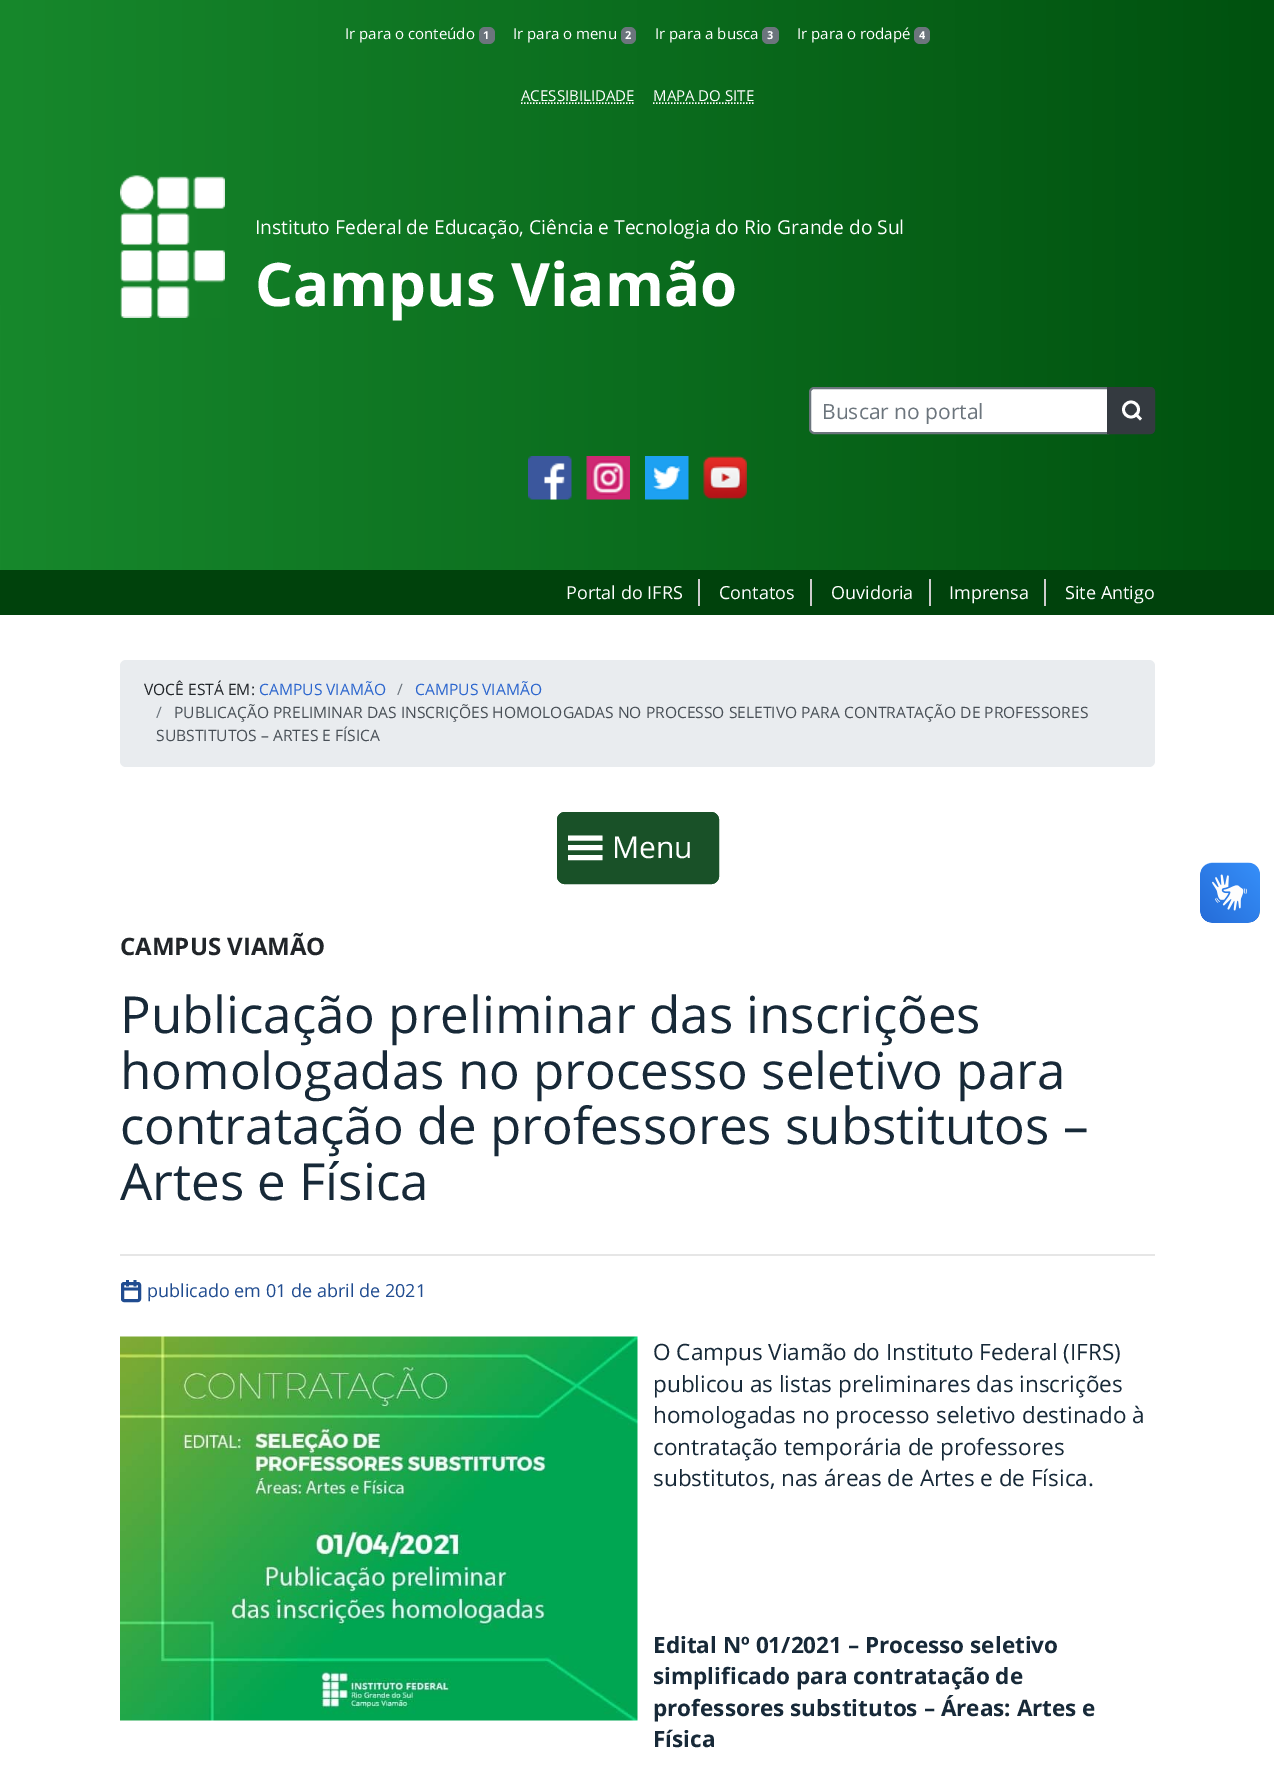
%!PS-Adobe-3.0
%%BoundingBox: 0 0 1274 1783
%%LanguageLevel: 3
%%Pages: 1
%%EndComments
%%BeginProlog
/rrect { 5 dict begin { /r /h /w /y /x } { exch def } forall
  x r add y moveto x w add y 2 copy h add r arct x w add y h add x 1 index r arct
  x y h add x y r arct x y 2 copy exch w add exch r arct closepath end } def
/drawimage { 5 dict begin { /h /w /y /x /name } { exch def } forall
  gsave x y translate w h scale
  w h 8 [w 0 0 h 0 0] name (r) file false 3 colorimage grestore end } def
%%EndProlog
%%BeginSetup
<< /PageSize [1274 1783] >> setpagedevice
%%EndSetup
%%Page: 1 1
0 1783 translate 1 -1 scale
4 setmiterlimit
1 setgray
0 0 1274 1783 rectfill
gsave newpath 0 0 moveto 1274 0 lineto 1274 570 lineto 0 570 lineto closepath clip newpath
<< /ShadingType 2 /ColorSpace /DeviceRGB /Coords [0 308 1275 307] /Extend [true true] /Function << /FunctionType 2 /Domain [0 1] /C0 [0.09 0.533 0.173] /C1 [0 0.318 0.059] /N 1 >> >> shfill grestore
0.424 0.459 0.49 setrgbcolor
479 27 16 17 6 rrect fill
621 27 15 17 6 rrect fill
762 27 17 17 6 rrect fill
914 27 16 17 6 rrect fill
1 setgray
1.5 setlinewidth
[1.5 1.5] 0 setdash
newpath 521 103 moveto 634.5 103 lineto stroke
newpath 653 103 moveto 754 103 lineto stroke
(images/1.raw) 120 175 105 143 drawimage
newpath 814 388 moveto 1108 388 lineto 1108 433 lineto 814 433 lineto 812 433 810 431 810 429 curveto 810 392 lineto 810 390 812 388 814 388 curveto closepath gsave fill grestore
0.424 0.459 0.49 setrgbcolor
2 setlinewidth
[] 0 setdash
stroke
0.204 0.227 0.251 setrgbcolor
newpath 1107 387 moveto 1150 387 lineto 1153 387 1155 389 1155 392 curveto 1155 429 lineto 1155 432 1153 434 1150 434 curveto 1107 434 lineto closepath fill
1 setgray
2.8 setlinewidth
newpath 1131 409.5 7.5 0 360 arc closepath stroke
2 setlinecap
newpath 1140 418.5 moveto 1136 414.5 lineto stroke
0.204 0.227 0.251 setrgbcolor
2 setlinewidth
0 setlinecap
newpath 1108 388 moveto 1150 388 lineto 1152 388 1154 390 1154 392 curveto 1154 429 lineto 1154 431 1152 433 1150 433 curveto 1108 433 lineto closepath stroke
(images/2.raw) 528 456 44 44 drawimage
(images/3.raw) 586 456 44 44 drawimage
(images/4.raw) 645 456 44 44 drawimage
(images/5.raw) 703 456 44 44 drawimage
0 0.259 0.047 setrgbcolor
0 570 1274 45 rectfill
0.8 setgray
698 579 2 27 rectfill
810 579 2 27 rectfill
929 579 2 27 rectfill
1044 579 2 27 rectfill
0.914 0.925 0.937 setrgbcolor
120 660 1035 107 6 rrect fill
0.098 0.318 0.157 setrgbcolor
557 812 162 72 8 rrect fill
1 setgray
4.9 setlinewidth
2 setlinecap
newpath 570.5 847.5 moveto 600 847.5 lineto 570.5 838 moveto 600 838 lineto 570.5 857.5 moveto 600 857.5 lineto stroke
0.098 0.318 0.157 setrgbcolor
2 setlinewidth
0 setlinecap
558 813 160 70 7 rrect stroke
0.902 setgray
120 1254 1035 2 rectfill
0.125 0.298 0.565 setrgbcolor
3 setlinewidth
122.5 1283.5 17 17 1.5 rrect stroke
2.8 setlinewidth
2 setlinecap
newpath 135 1281.5 moveto 135 1285 lineto 127.5 1281.5 moveto 127.5 1285 lineto 123 1289 moveto 139.5 1289 lineto stroke
(images/6.raw) 120 1336 518 385 drawimage
(images/7.raw) 1200 862 60 61 drawimage
(images/8.raw) 1200 863 60 60 drawimage
/OpenSans-Regular [15 0 0 -15 0 0] selectfont
1 setgray
345 39 moveto (Ir para o conteúdo) show
/OpenSans-Bold [11 0 0 -11 0 0] selectfont
483 39 moveto (1) show
/OpenSans-Regular [15 0 0 -15 0 0] selectfont
513 39 moveto (Ir para o menu) show
/OpenSans-Bold [11 0 0 -11 0 0] selectfont
625 39 moveto (2) show
/OpenSans-Regular [15 0 0 -15 0 0] selectfont
655 39 moveto (Ir para a busca) show
/OpenSans-Bold [11 0 0 -11 0 0] selectfont
767 39 moveto (3) show
/OpenSans-Regular [15 0 0 -15 0 0] selectfont
797 39 moveto (Ir para o rodapé) show
/OpenSans-Bold [11 0 0 -11 0 0] selectfont
919 39 moveto (4) show
/OpenSans-Regular [15 0 0 -15 0 0] selectfont
521 101 moveto (ACESSIBILIDADE) show
653 101 moveto (MAPA DO SITE) show
/OpenSans-Regular [19.2 0 0 -19.2 0 0] selectfont
255 234 moveto (Instituto Federal de Educação, Ciência e Tecnologia do Rio Grande do Sul) show
/OpenSans-Bold [60 0 0 -60 0 0] selectfont
255 306 moveto (Campus Viamão) show
/OpenSans-Regular [21 0 0 -21 0 0] selectfont
0.424 0.459 0.49 setrgbcolor
822 419 moveto (Buscar no portal) show
/OpenSans-Regular [18 0 0 -18 0 0] selectfont
1 setgray
566 599 moveto (Portal do IFRS) show
719 599 moveto (Contatos) show
831 599 moveto (Ouvidoria) show
949 599 moveto (Imprensa) show
1065 599 moveto (Site Antigo) show
/OpenSans-Regular [15.6 0 0 -15.6 0 0] selectfont
0.129 0.145 0.161 setrgbcolor
144 695 moveto (VOCÊ ESTÁ EM:) show
0.173 0.4 0.808 setrgbcolor
259 695 moveto (CAMPUS VIAMÃO) show
0.424 0.459 0.49 setrgbcolor
397 695 moveto (/) show
0.173 0.4 0.808 setrgbcolor
415 695 moveto (CAMPUS VIAMÃO) show
0.424 0.459 0.49 setrgbcolor
156 718 moveto (/) show
0.286 0.314 0.341 setrgbcolor
174 718 moveto (PUBLICAÇÃO PRELIMINAR DAS INSCRIÇÕES HOMOLOGADAS NO PROCESSO SELETIVO PARA CONTRATAÇÃO DE PROFESSORES) show
156 741 moveto (SUBSTITUTOS – ARTES E FÍSICA) show
/OpenSans-Regular [30 0 0 -30 0 0] selectfont
1 setgray
612 858 moveto (Menu) show
/OpenSans-Bold [24 0 0 -24 0 0] selectfont
0.129 0.145 0.161 setrgbcolor
120 955 moveto (CAMPUS VIAMÃO) show
/OpenSans-Regular [51 0 0 -51 0 0] selectfont
0.09 0.161 0.22 setrgbcolor
120 1033 moveto (Publicação preliminar das inscrições) show
120 1089 moveto (homologadas no processo seletivo para) show
120 1144 moveto (contratação de professores substitutos –) show
120 1200 moveto (Artes e Física) show
/OpenSans-Regular [18 0 0 -18 0 0] selectfont
0.125 0.298 0.565 setrgbcolor
147 1297 moveto (publicado em 01 de abril de 2021) show
/OpenSans-Regular [22.5 0 0 -22.5 0 0] selectfont
0.09 0.161 0.22 setrgbcolor
653 1360 moveto (O Campus Viamão do Instituto Federal \(IFRS\)) show
653 1392 moveto (publicou as listas preliminares das inscrições) show
653 1423 moveto (homologadas no processo seletivo destinado à) show
653 1455 moveto (contratação temporária de professores) show
653 1486 moveto (substitutos, nas áreas de Artes e de Física.) show
/OpenSans-Bold [22.5 0 0 -22.5 0 0] selectfont
653 1653 moveto (Edital Nº 01/2021 – Processo seletivo) show
653 1684 moveto (simplificado para contratação de) show
653 1716 moveto (professores substitutos – Áreas: Artes e) show
653 1747 moveto (Física) show
showpage
%%EOF
